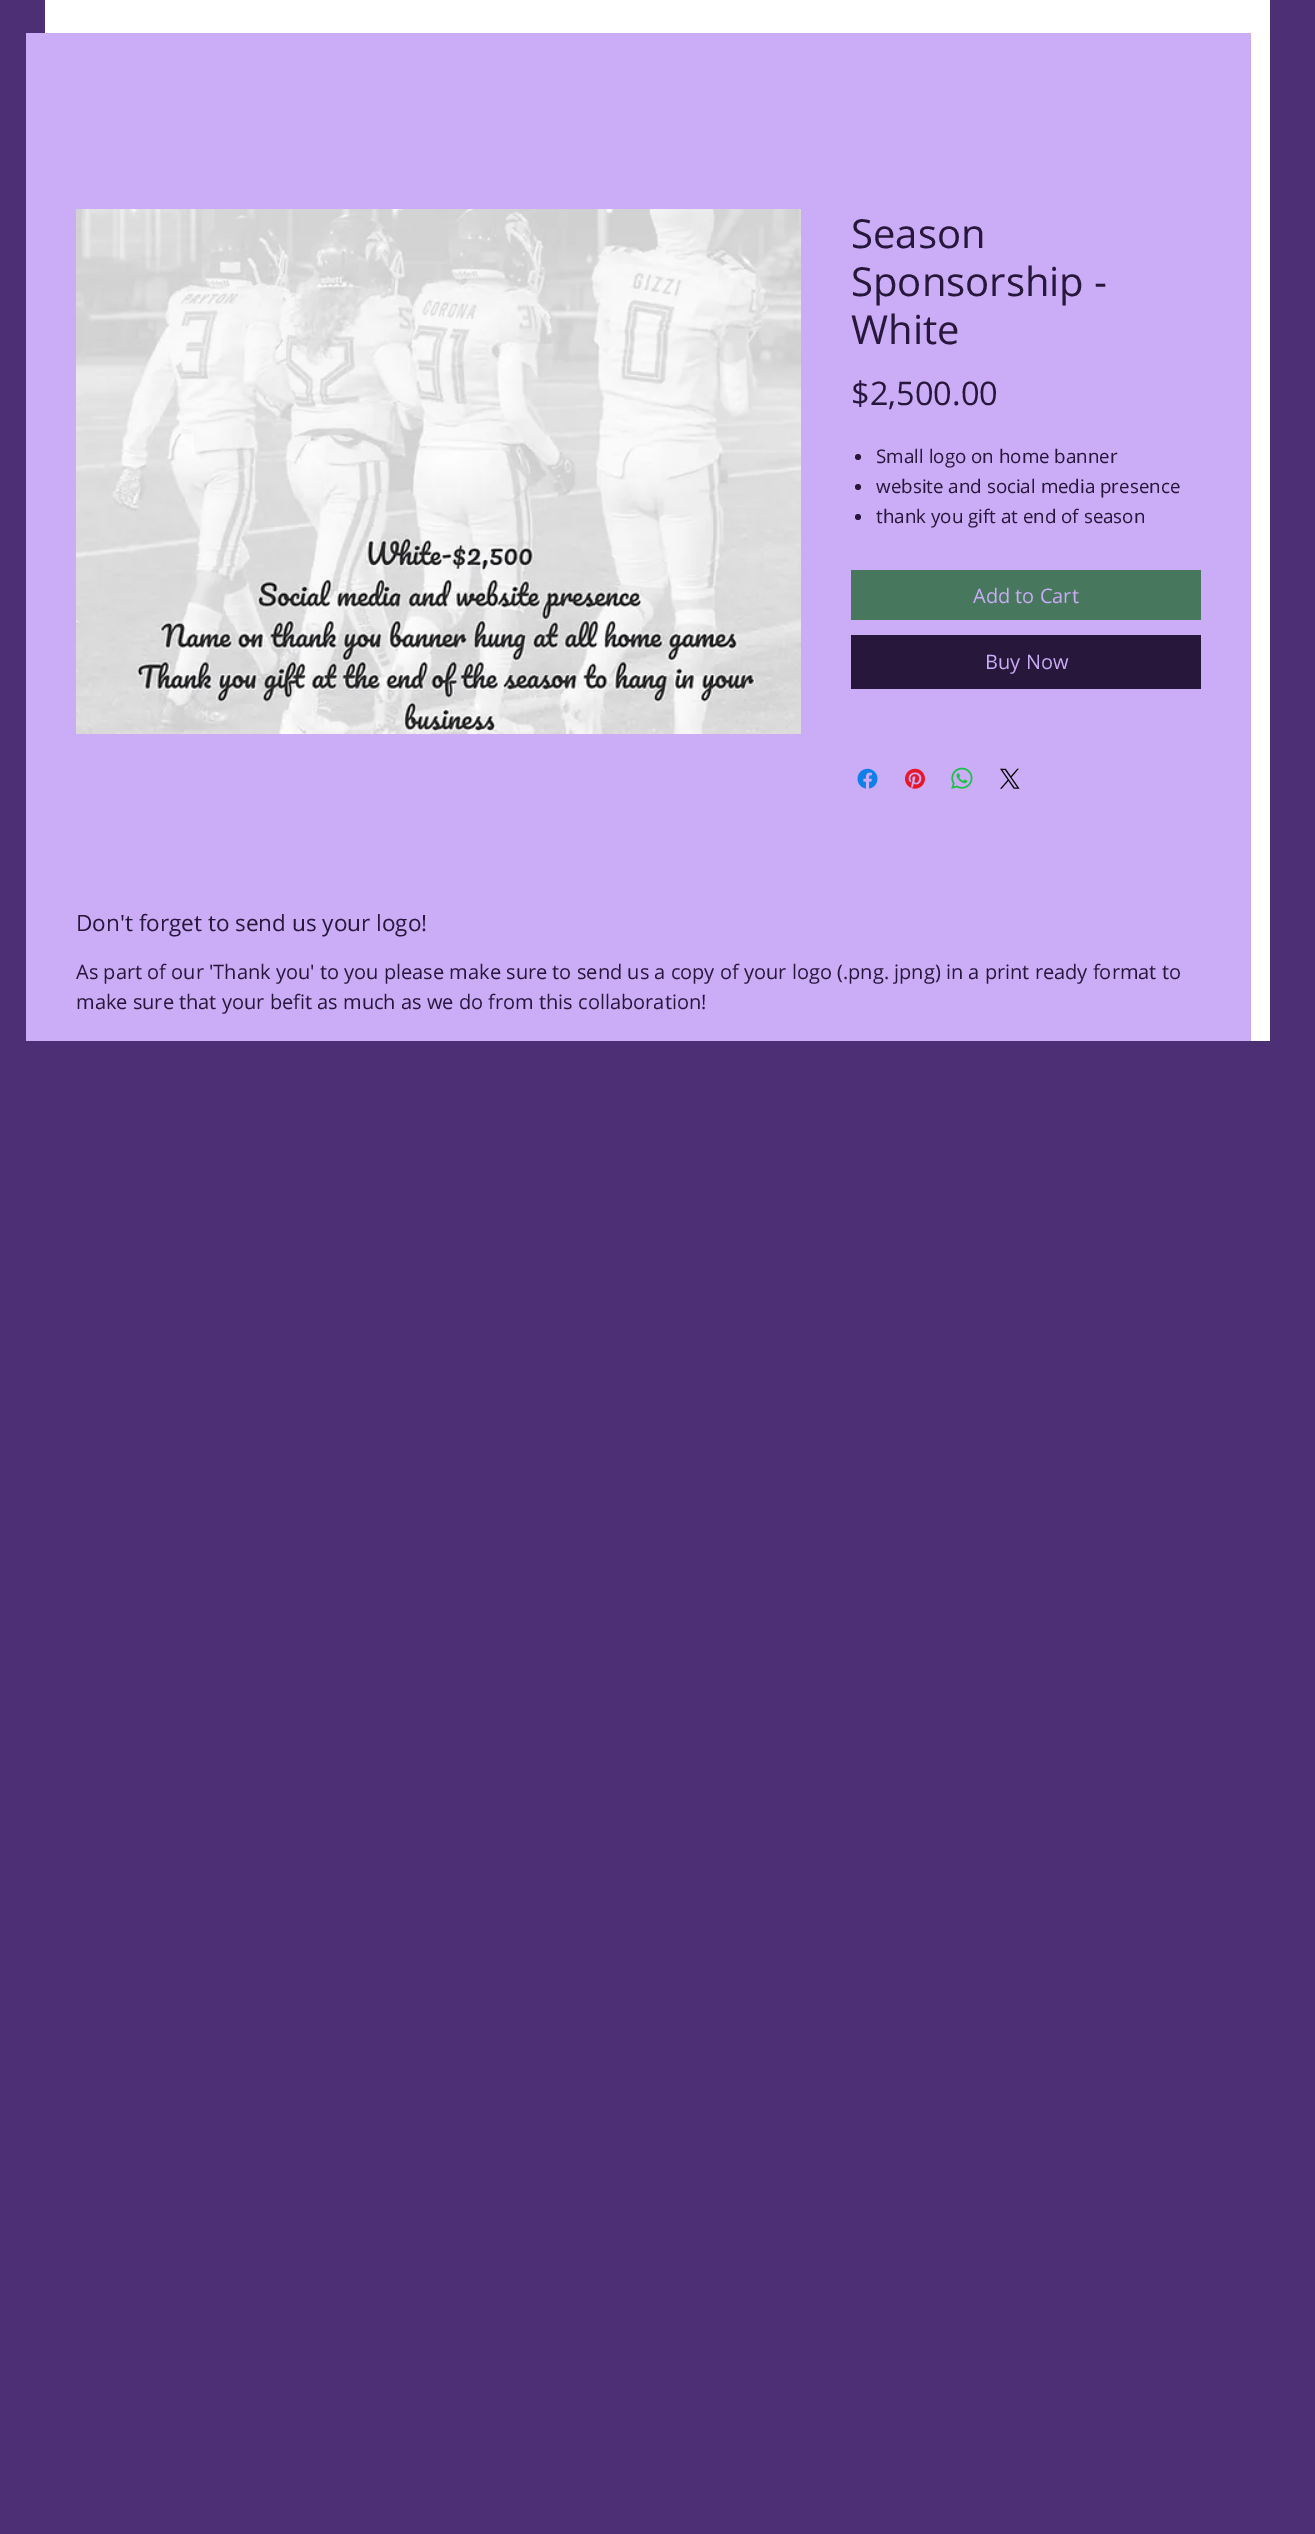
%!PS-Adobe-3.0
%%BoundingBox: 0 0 1315 2534
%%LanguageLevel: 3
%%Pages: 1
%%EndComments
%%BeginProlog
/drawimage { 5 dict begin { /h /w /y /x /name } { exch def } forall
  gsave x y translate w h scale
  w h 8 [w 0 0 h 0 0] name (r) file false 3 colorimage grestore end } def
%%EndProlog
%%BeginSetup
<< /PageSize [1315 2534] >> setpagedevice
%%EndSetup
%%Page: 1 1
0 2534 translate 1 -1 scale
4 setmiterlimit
0.302 0.184 0.463 setrgbcolor
0 0 1315 2534 rectfill
1 setgray
45 0 1225 1041 rectfill
0.796 0.675 0.965 setrgbcolor
26 33 1225 1008 rectfill
(images/1.raw) 76 209 725 525 drawimage
0.153 0.094 0.231 setrgbcolor
newpath 858 457 3 0 360 arc closepath fill
newpath 858 487 3 0 360 arc closepath fill
newpath 858 517 3 0 360 arc closepath fill
0.278 0.471 0.365 setrgbcolor
851 570 350 50 rectfill
0.153 0.094 0.231 setrgbcolor
851 635 350 54 rectfill
(images/2.raw) 857 768 21 21 drawimage
(images/3.raw) 905 768 20 21 drawimage
(images/4.raw) 951 767 22 22 drawimage
(images/5.raw) 1000 768 20 21 drawimage
/OpenSans-Regular [40 0 0 -40 0 0] selectfont
851 248 moveto (Season) show
851 296 moveto (Sponsorship -) show
851 344 moveto (White) show
/OpenSans-Regular [32.5 0 0 -32.5 0 0] selectfont
851 405 moveto ($2,500.00) show
/OpenSans-Regular [18.75 0 0 -18.75 0 0] selectfont
876 463 moveto (Small logo on home banner) show
876 493 moveto (website and social media presence) show
876 523 moveto (thank you gift at end of season) show
/OpenSans-Regular [20 0 0 -20 0 0] selectfont
0.796 0.675 0.965 setrgbcolor
973 603 moveto (Add to Cart) show
985 669 moveto (Buy Now) show
/OpenSans-Regular [22.5 0 0 -22.5 0 0] selectfont
0.153 0.094 0.231 setrgbcolor
76 931 moveto (Don't forget to send us your logo!) show
/OpenSans-Regular [20 0 0 -20 0 0] selectfont
76 979 moveto (As part of our 'Thank you' to you please make sure to send us a copy of your logo \(.png. jpng\) in a print ready format to) show
76 1009 moveto (make sure that your befit as much as we do from this collaboration!) show
showpage
%%EOF
